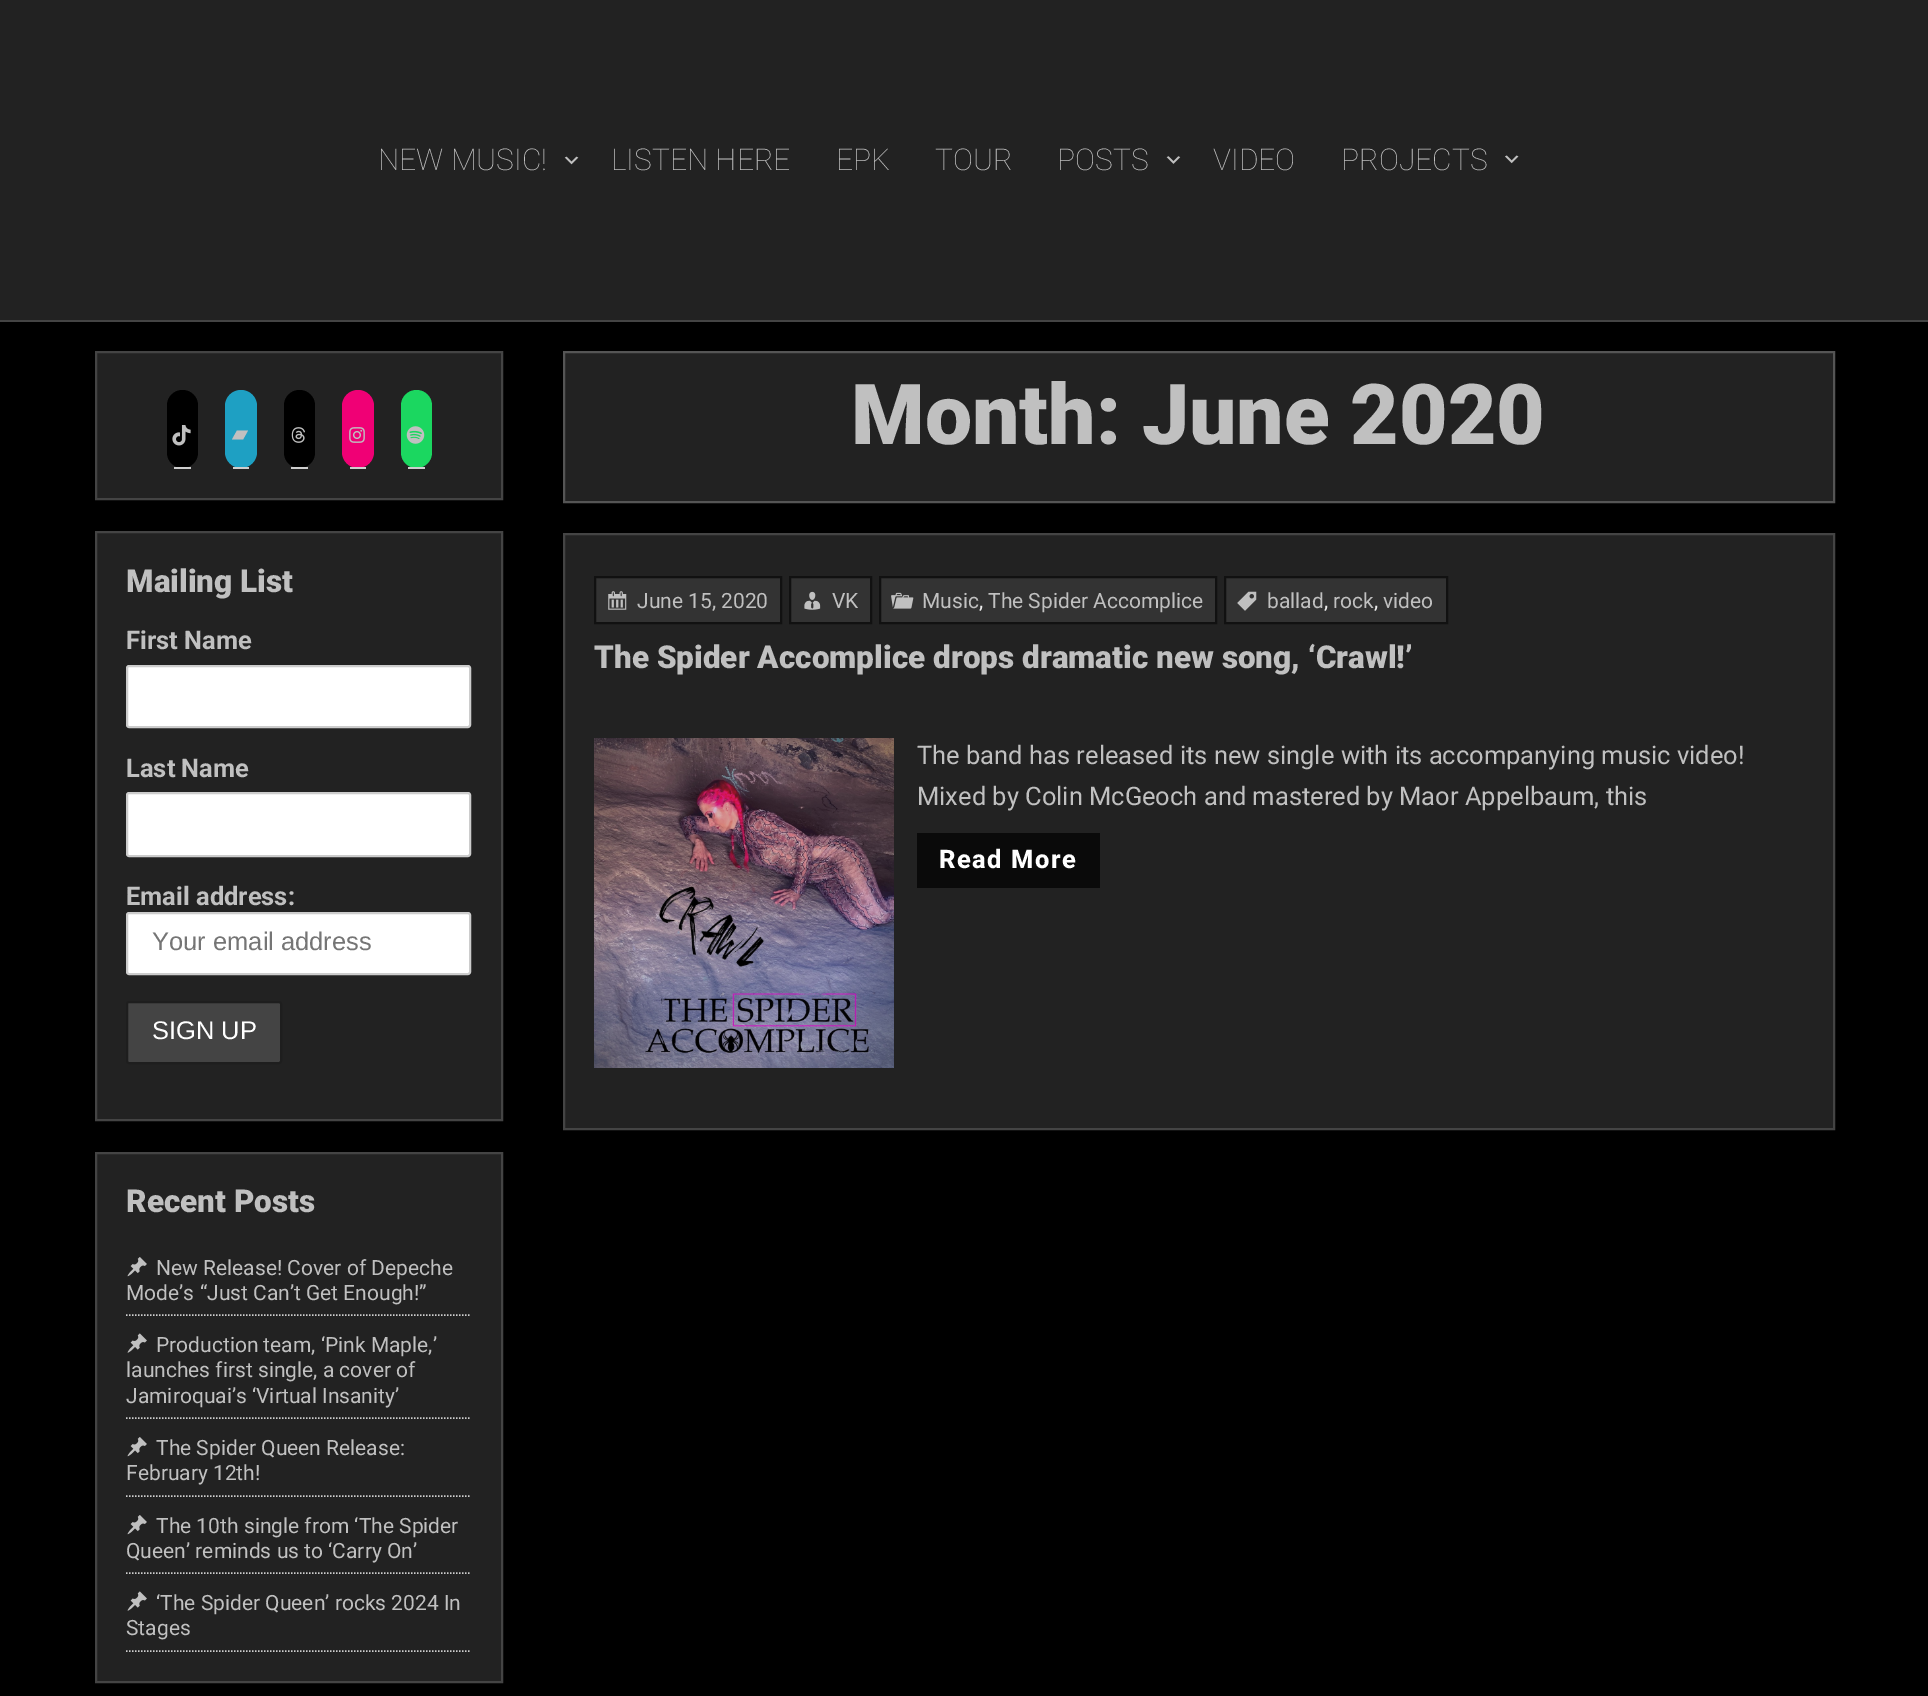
%!PS-Adobe-3.0
%%BoundingBox: 0 0 1928 1696
%%LanguageLevel: 3
%%Pages: 1
%%EndComments
%%BeginProlog
/rrect { 5 dict begin { /r /h /w /y /x } { exch def } forall
  x r add y moveto x w add y 2 copy h add r arct x w add y h add x 1 index r arct
  x y h add x y r arct x y 2 copy exch w add exch r arct closepath end } def
/drawimage { 5 dict begin { /h /w /y /x /name } { exch def } forall
  gsave x y translate w h scale
  w h 8 [w 0 0 h 0 0] name (r) file false 3 colorimage grestore end } def
%%EndProlog
%%BeginSetup
<< /PageSize [1928 1696] >> setpagedevice
%%EndSetup
%%Page: 1 1
0 1696 translate 1 -1 scale
4 setmiterlimit
0 setgray
0 0 1928 1696 rectfill
0.133 setgray
0 0 1928 320 rectfill
0.267 setgray
0 320 1928 2 rectfill
(images/1.raw) 564 156 15 9 drawimage
(images/2.raw) 1166 156 15 8 drawimage
(images/3.raw) 1505 155 14 9 drawimage
0.133 setgray
newpath 96 352 moveto 502 352 lineto 502 499 lineto 96 499 lineto closepath gsave fill grestore
0.267 setgray
2 setlinewidth
stroke
0 setgray
167 390 31 78 15.5 rrect fill
0.808 setgray
174 467 17 2 rectfill
(images/4.raw) 172 425 19 21 drawimage
0.118 0.627 0.765 setrgbcolor
225 390 32 78 16 rrect fill
0.808 setgray
233 467 16 2 rectfill
0.753 setgray
newpath 243 439.5 moveto 232 439.5 lineto 237 430.5 lineto 248 430.5 lineto 243 439.5 lineto fill
0 setgray
284 390 31 78 15.5 rrect fill
0.808 setgray
291 467 17 2 rectfill
(images/5.raw) 291 427 14 16 drawimage
0.941 0 0.459 setrgbcolor
342 390 32 78 16 rrect fill
0.808 setgray
350 467 16 2 rectfill
(images/6.raw) 349 427 16 16 drawimage
0.106 0.843 0.376 setrgbcolor
401 390 31 78 15.5 rrect fill
0.808 setgray
408 467 17 2 rectfill
(images/7.raw) 406 426 19 18 drawimage
0.133 setgray
newpath 96 532 moveto 502 532 lineto 502 1120 lineto 96 1120 lineto closepath gsave fill grestore
0.267 setgray
stroke
1 setgray
127 666 343 61 2 rrect gsave fill grestore
0.8 setgray
stroke
1 setgray
127 793 343 63 2 rrect gsave fill grestore
0.8 setgray
stroke
1 setgray
127 913 343 61 2 rrect gsave fill grestore
0.8 setgray
stroke
0.267 setgray
127 1002 154 61 2 rrect gsave fill grestore
0.118 setgray
stroke
0.133 setgray
newpath 96 1153 moveto 502 1153 lineto 502 1682 lineto 96 1682 lineto closepath gsave fill grestore
0.267 setgray
stroke
0.808 setgray
1.5 setlinewidth
[1.5 1.5] 0 setdash
newpath 126 1315 moveto 471 1315 lineto stroke
(images/8.raw) 127 1257 20 20 drawimage
newpath 126 1418 moveto 471 1418 lineto stroke
(images/9.raw) 127 1333 20 20 drawimage
newpath 126 1496 moveto 471 1496 lineto stroke
(images/8.raw) 127 1437 20 20 drawimage
newpath 126 1573 moveto 471 1573 lineto stroke
(images/8.raw) 127 1515 20 20 drawimage
newpath 126 1651 moveto 471 1651 lineto stroke
(images/9.raw) 127 1591 20 20 drawimage
0.133 setgray
newpath 564 352 moveto 1834 352 lineto 1834 502 lineto 564 502 lineto closepath gsave fill grestore
0.333 setgray
2 setlinewidth
[] 0 setdash
stroke
0.133 setgray
newpath 564 534 moveto 1834 534 lineto 1834 1129 lineto 564 1129 lineto closepath gsave fill grestore
0.267 setgray
stroke
0.2 setgray
newpath 595 577 moveto 781 577 lineto 781 623 lineto 595 623 lineto closepath gsave fill grestore
0.067 setgray
stroke
(images/10.raw) 608 591 19 19 drawimage
0.2 setgray
newpath 790 577 moveto 871 577 lineto 871 623 lineto 790 623 lineto closepath gsave fill grestore
0.067 setgray
stroke
(images/11.raw) 804 591 17 19 drawimage
0.2 setgray
newpath 880 577 moveto 1216 577 lineto 1216 623 lineto 880 623 lineto closepath gsave fill grestore
0.067 setgray
stroke
(images/12.raw) 891 592 23 17 drawimage
0.2 setgray
newpath 1225 577 moveto 1447 577 lineto 1447 623 lineto 1225 623 lineto closepath gsave fill grestore
0.067 setgray
stroke
(images/13.raw) 1237 591 20 20 drawimage
(images/14.raw) 594 738 300 330 drawimage
0.039 setgray
917 833 183 55 rectfill
/Roboto-Thin [30 0 0 -30 0 0] selectfont
0.753 setgray
378 170 moveto (NEW MUSIC!) show
611 170 moveto (LISTEN HERE) show
836 170 moveto (EPK) show
935 170 moveto (TOUR) show
1057 170 moveto (POSTS) show
1213 170 moveto (VIDEO) show
1341 170 moveto (PROJECTS) show
/Roboto-Black [31.5 0 0 -31.5 0 0] selectfont
126 592 moveto (Mailing List) show
/Roboto-Bold [25.5 0 0 -25.5 0 0] selectfont
126 649 moveto (First Name) show
126 777 moveto (Last Name) show
126 905 moveto (Email address:) show
/LiberationSans-Regular [25.5 0 0 -25.5 0 0] selectfont
0.459 setgray
152 950 moveto (Your email address) show
1 setgray
152 1039 moveto (SIGN UP) show
/Roboto-Black [31.5 0 0 -31.5 0 0] selectfont
0.753 setgray
126 1212 moveto (Recent Posts) show
/Roboto-Regular [21 0 0 -21 0 0] selectfont
156 1275 moveto (New Release! Cover of Depeche) show
126 1300 moveto (Mode’s “Just Can’t Get Enough!”) show
156 1352 moveto (Production team, ‘Pink Maple,’) show
126 1377 moveto (launches first single, a cover of) show
126 1403 moveto (Jamiroquai’s ‘Virtual Insanity’) show
156 1455 moveto (The Spider Queen Release:) show
126 1480 moveto (February 12th!) show
156 1533 moveto (The 10th single from ‘The Spider) show
126 1558 moveto (Queen’ reminds us to ‘Carry On’) show
156 1610 moveto (‘The Spider Queen’ rocks 2024 In) show
126 1635 moveto (Stages) show
/Roboto-Black [84 0 0 -84 0 0] selectfont
851 444 moveto (Month: June 2020) show
/Roboto-Regular [21 0 0 -21 0 0] selectfont
637 608 moveto (June 15, 2020) show
832 608 moveto (VK) show
922 608 moveto (Music) show
0.933 setgray
979 608 moveto (,) show
0.753 setgray
988 608 moveto (The Spider Accomplice) show
1267 608 moveto (ballad) show
0.933 setgray
1324 608 moveto (,) show
0.753 setgray
1333 608 moveto (rock) show
0.933 setgray
1374 608 moveto (,) show
0.753 setgray
1383 608 moveto (video) show
/Roboto-Black [31.5 0 0 -31.5 0 0] selectfont
594 668 moveto (The Spider Accomplice drops dramatic new song, ‘Crawl!’) show
/Roboto-Regular [25.5 0 0 -25.5 0 0] selectfont
917 764 moveto (The band has released its new single with its accompanying music video!) show
917 805 moveto (Mixed by Colin McGeoch and mastered by Maor Appelbaum, this) show
/Roboto-ExtraBold [25.5 0 0 -25.5 0 0] selectfont
1 setgray
939 868 moveto 1.5 0 (Read More) ashow
showpage
%%EOF
